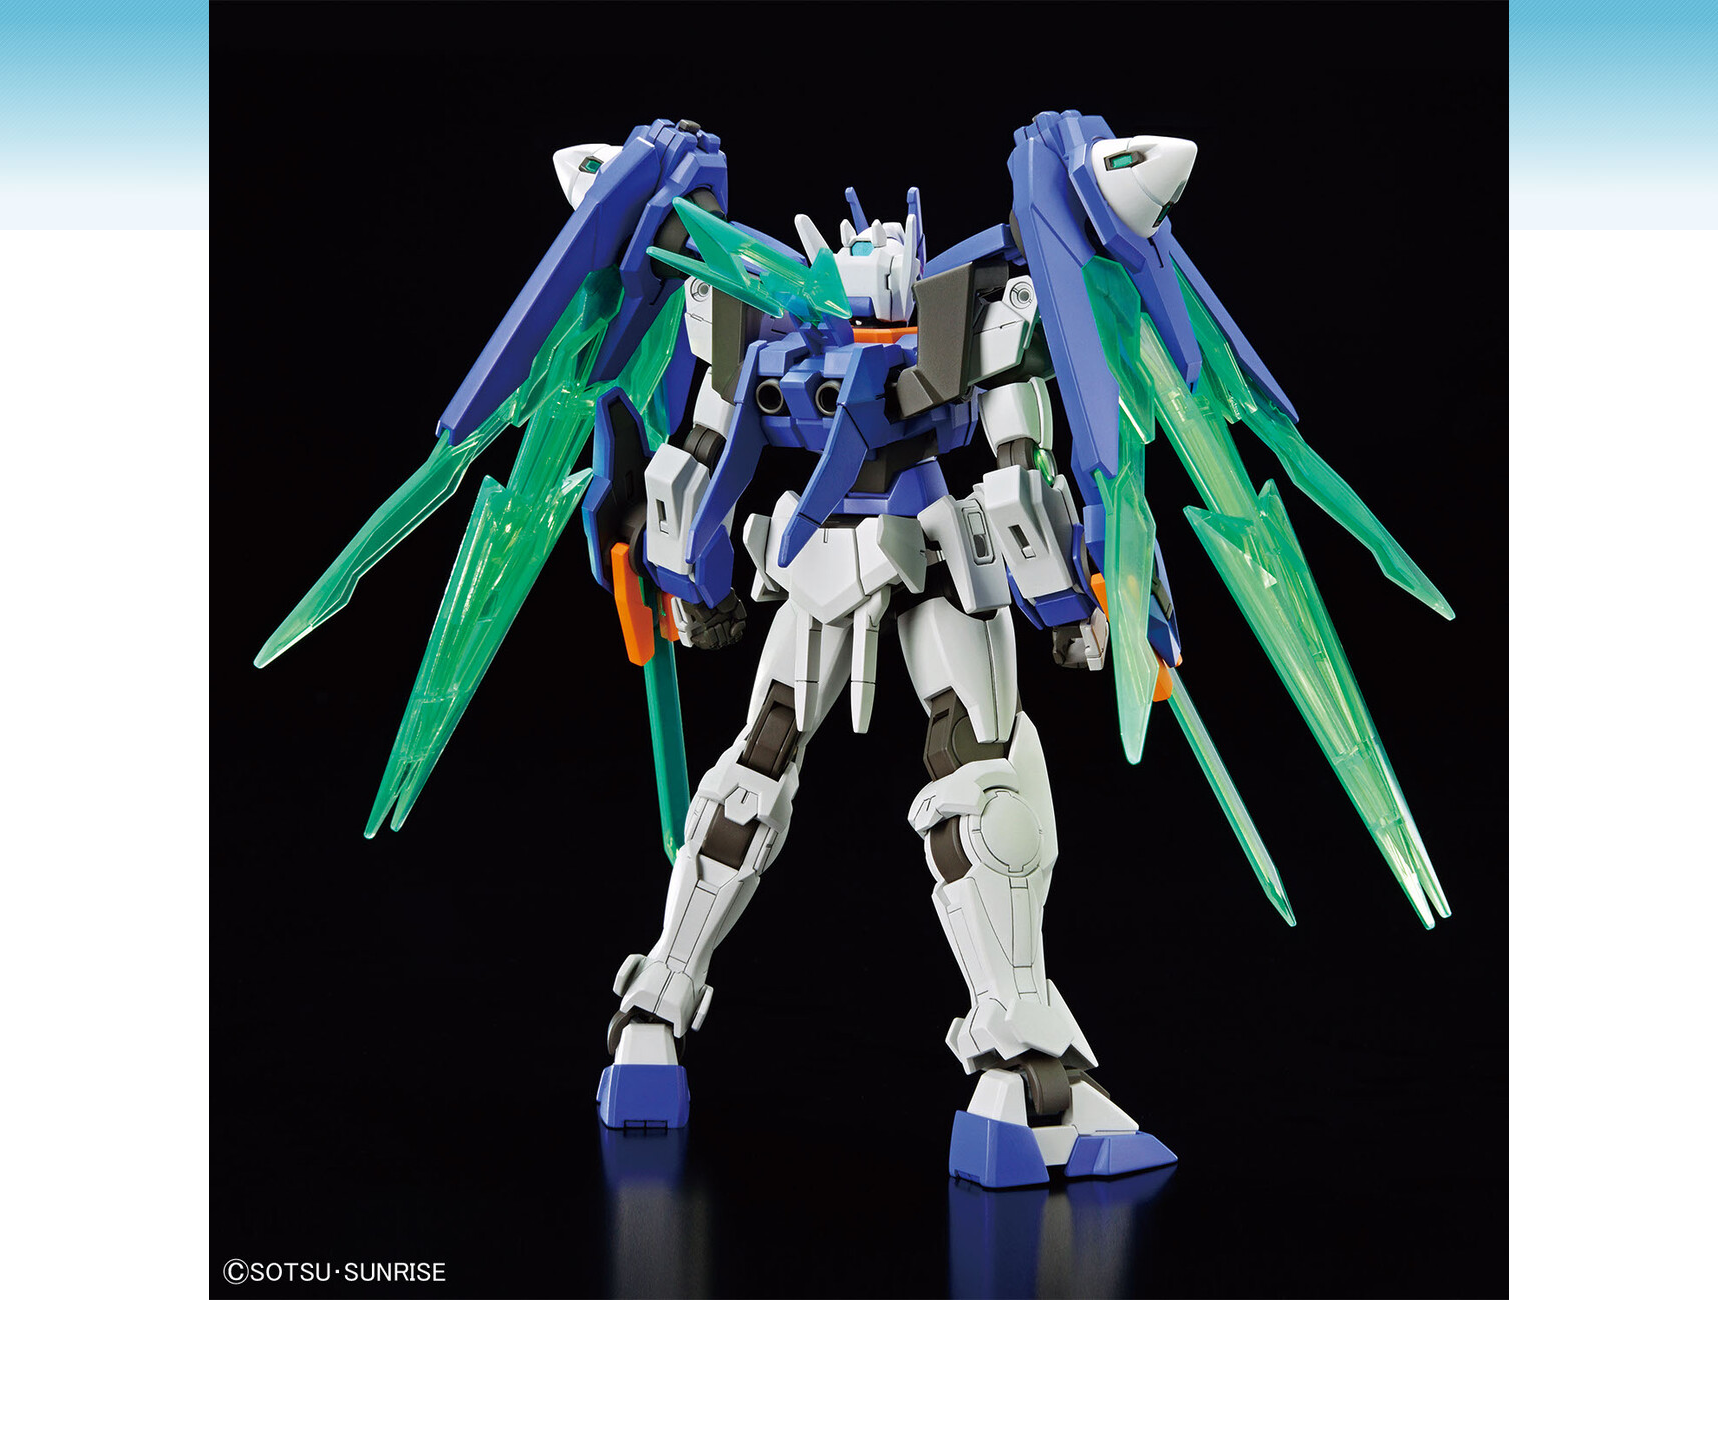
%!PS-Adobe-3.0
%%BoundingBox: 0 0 1718 1429
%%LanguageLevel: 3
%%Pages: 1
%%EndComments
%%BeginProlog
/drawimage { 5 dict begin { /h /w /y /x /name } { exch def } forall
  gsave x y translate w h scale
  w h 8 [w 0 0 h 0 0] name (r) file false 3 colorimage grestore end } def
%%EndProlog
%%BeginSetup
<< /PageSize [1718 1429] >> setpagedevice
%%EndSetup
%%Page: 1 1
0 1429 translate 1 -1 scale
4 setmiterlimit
1 setgray
0 0 1718 1429 rectfill
(images/1.raw) 0 0 1718 230 drawimage
(images/2.raw) 209 0 1300 1300 drawimage
showpage
%%EOF
